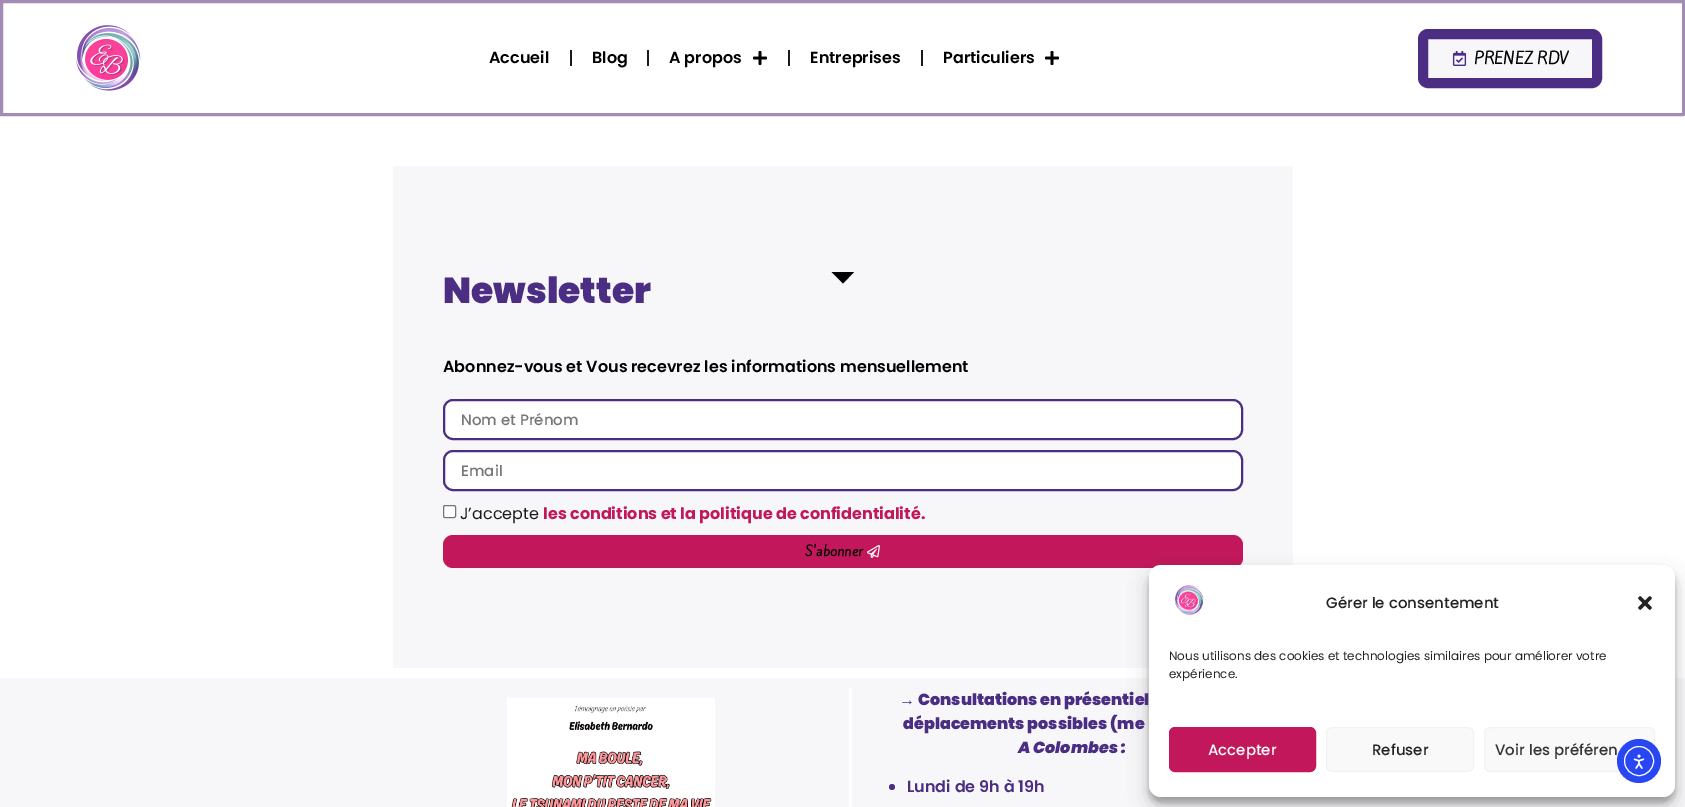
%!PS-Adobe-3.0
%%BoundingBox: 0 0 1685 807
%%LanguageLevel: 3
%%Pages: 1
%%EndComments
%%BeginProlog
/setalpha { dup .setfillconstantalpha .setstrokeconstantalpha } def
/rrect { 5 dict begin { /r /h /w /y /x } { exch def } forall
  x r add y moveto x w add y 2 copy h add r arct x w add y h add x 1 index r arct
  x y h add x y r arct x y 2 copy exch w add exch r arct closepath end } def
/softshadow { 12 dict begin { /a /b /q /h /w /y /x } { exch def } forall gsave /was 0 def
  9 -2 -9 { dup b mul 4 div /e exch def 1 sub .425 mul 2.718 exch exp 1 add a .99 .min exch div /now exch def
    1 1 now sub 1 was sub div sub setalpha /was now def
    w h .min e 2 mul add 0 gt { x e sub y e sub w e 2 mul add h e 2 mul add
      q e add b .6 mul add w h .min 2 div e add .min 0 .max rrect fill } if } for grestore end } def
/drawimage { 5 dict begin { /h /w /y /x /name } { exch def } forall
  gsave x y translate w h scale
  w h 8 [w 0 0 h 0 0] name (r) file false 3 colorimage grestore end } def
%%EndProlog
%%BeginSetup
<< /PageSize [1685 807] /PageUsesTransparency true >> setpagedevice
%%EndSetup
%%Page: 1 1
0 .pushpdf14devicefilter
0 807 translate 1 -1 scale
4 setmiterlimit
1 setgray
0 0 1685 807 rectfill
0.89 0.831 0.851 setrgbcolor
1683 114 2 2 rectfill
0.635 0.549 0.71 setrgbcolor
3 setlinewidth
newpath 1.5 1.5 moveto 1683.5 1.5 lineto 1683.5 114 lineto 1683.5 114.5 1683.5 114.5 1683 114.5 curveto 1.5 114.5 lineto closepath stroke
(images/1.raw) 76 25 65 66 drawimage
0.102 setgray
570 50 2 16 rectfill
647 50 2 16 rectfill
(images/2.raw) 753 51 14 14 drawimage
788 50 2 16 rectfill
921 50 2 16 rectfill
(images/2.raw) 1045 51 14 14 drawimage
0.969 0.969 0.98 setrgbcolor
1423 34 174 49 5 rrect gsave fill grestore
0.294 0.18 0.514 setrgbcolor
10 setlinewidth
stroke
(images/3.raw) 1452 51 15 15 drawimage
0.969 0.969 0.98 setrgbcolor
393 166 900 502 rectfill
0 setgray
newpath 843 283.5 moveto 831.5 272 lineto 854 272 lineto closepath fill
1 setgray
444 400 798 39 9 rrect gsave fill grestore
0.294 0.18 0.514 setrgbcolor
2 setlinewidth
stroke
1 setgray
444 451 798 39 9 rrect gsave fill grestore
0.294 0.18 0.514 setrgbcolor
stroke
1 setgray
443.5 505.5 12 12 1.5 rrect gsave fill grestore
0.463 setgray
1 setlinewidth
stroke
0.761 0.094 0.357 setrgbcolor
443 535 800 33 10 rrect fill
(images/4.raw) 867 545 13 13 drawimage
0.969 0.969 0.98 setrgbcolor
0 678 1685 129 rectfill
(images/5.raw) 507 698 208 109 drawimage
1 setgray
849 688 3 119 rectfill
0.294 0.18 0.514 setrgbcolor
newpath 892 787 3 0 360 arc closepath fill
0 setgray
1149 571 526 232 12 3 0.23 softshadow
1149 575 526 232 12 10 0.19 softshadow
1 setgray
1149 565 526 232 12 rrect fill
(images/6.raw) 1174 584 30 31 drawimage
(images/7.raw) 1638 596 14 14 drawimage
0.761 0.094 0.357 setrgbcolor
1169.5 727.5 146 44 5.5 rrect gsave fill grestore
stroke
0.976 setgray
1326.5 727.5 147 44 5.5 rrect gsave fill grestore
0.949 setgray
stroke
0.976 setgray
1484.5 727.5 170 44 5.5 rrect gsave fill grestore
0.949 setgray
stroke
0.157 0.278 0.953 setrgbcolor
newpath 1639 761 22 0 360 arc closepath fill
1 setgray
newpath 1639 761 14.5 0 360 arc closepath stroke
(images/8.raw) 1633 754 12 15 drawimage
/Poppins-SemiBold [16 0 0 -16 0 0] selectfont
0 setgray
489 63 moveto (Accueil) show
592 63 moveto (Blog) show
669 63 moveto (A propos) show
810 63 moveto (Entreprises) show
943 63 moveto (Particuliers) show
/KiteOne-Bold [15 0 0 -15 0 0] selectfont
1474 64 moveto (PRENEZ RDV) show
/Poppins-Black [36 0 0 -36 0 0] selectfont
0.294 0.18 0.514 setrgbcolor
443 303 moveto (Newsletter) show
/Poppins-SemiBold [16 0 0 -16 0 0] selectfont
0 setgray
443 372 moveto (Abonnez-vous et Vous recevrez les informations mensuellement) show
/Poppins-Medium [15 0 0 -15 0 0] selectfont
0.463 setgray
461 425 moveto (Nom et Prénom) show
461 476 moveto (Email) show
/Poppins-Regular [16 0 0 -16 0 0] selectfont
0.102 setgray
460 519 moveto (J’accepte) show
/Poppins-Bold [16 0 0 -16 0 0] selectfont
0.761 0.094 0.357 setrgbcolor
543 519 moveto (les conditions et la politique de confidentialité.) show
/KiteOne-Bold [13 0 0 -13 0 0] selectfont
0 setgray
805 556 moveto (S'abonner) show
/LiberationSans-Bold [16 0 0 -16 0 0] selectfont
0.294 0.18 0.514 setrgbcolor
899 705 moveto (→) show
/Poppins-Black [16 0 0 -16 0 0] selectfont
918 705 moveto (Consultations en présentiel) show
903 729 moveto (déplacements possibles \(me) show
/Poppins-BlackItalic [16 0 0 -16 0 0] selectfont
1018 753 moveto (A Colombes :) show
/Poppins-SemiBold [16 0 0 -16 0 0] selectfont
907 792 moveto (Lundi de 9h à 19h) show
/Poppins-Medium [15 0 0 -15 0 0] selectfont
0.133 setgray
1326 608 moveto (Gérer le consentement) show
/Poppins-Regular [12 0 0 -12 0 0] selectfont
1169 660 moveto (Nous utilisons des cookies et technologies similaires pour améliorer votre) show
1169 678 moveto (expérience.) show
/Poppins-Medium [15 0 0 -15 0 0] selectfont
1 setgray
1208 755 moveto (Accepter) show
0.133 setgray
1372 755 moveto (Refuser) show
0.2 setgray
1495 755 moveto (Voir les préféren) show
.poppdf14devicefilter showpage
%%EOF
